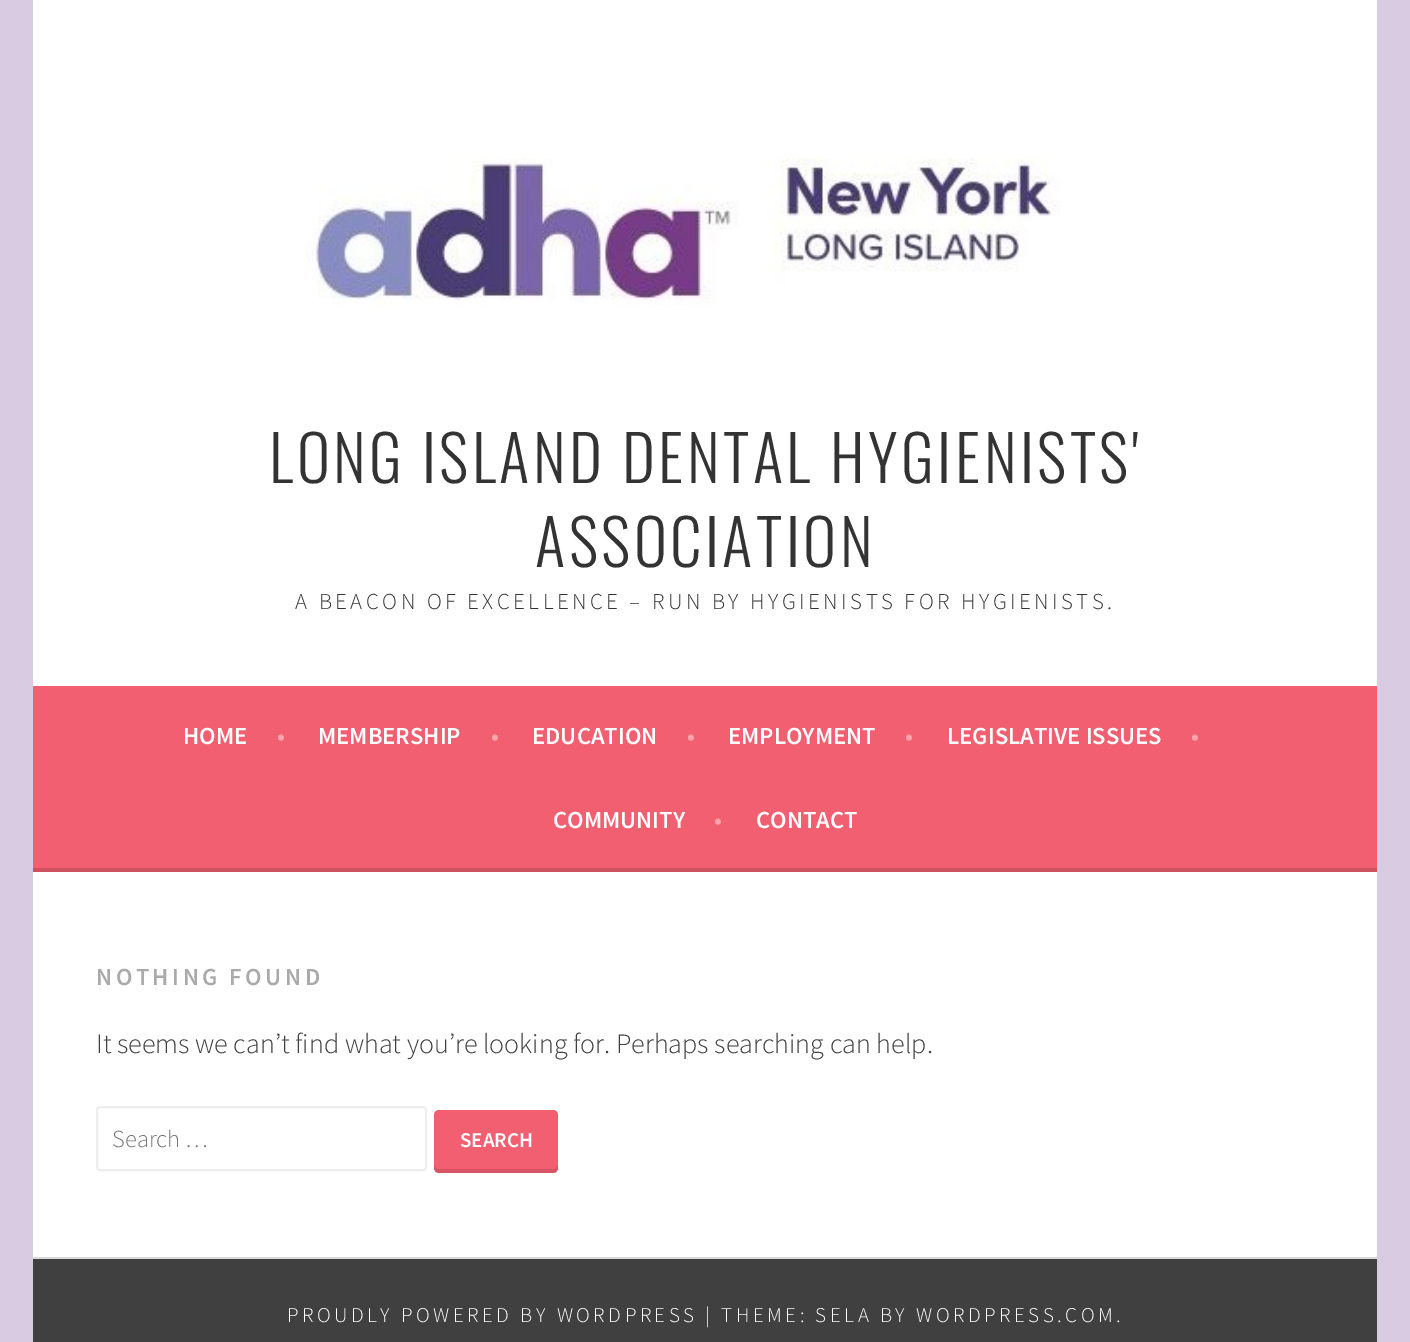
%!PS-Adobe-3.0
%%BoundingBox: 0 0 1410 1342
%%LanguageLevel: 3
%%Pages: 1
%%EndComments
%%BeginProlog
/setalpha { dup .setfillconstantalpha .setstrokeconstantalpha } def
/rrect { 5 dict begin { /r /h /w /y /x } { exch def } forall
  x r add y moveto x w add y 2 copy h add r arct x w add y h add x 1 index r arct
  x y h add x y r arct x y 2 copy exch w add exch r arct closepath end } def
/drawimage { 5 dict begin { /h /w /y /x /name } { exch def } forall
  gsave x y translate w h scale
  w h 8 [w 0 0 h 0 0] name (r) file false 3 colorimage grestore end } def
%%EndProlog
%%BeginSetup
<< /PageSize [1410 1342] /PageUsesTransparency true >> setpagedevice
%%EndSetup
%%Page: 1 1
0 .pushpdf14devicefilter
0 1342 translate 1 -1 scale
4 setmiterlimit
0.851 0.8 0.886 setrgbcolor
0 0 1410 1342 rectfill
1 setgray
33 0 1344 686 rectfill
(images/1.raw) 305 156 755 150 drawimage
0.949 0.373 0.439 setrgbcolor
33 686 1344 182 rectfill
0.808 0.318 0.373 setrgbcolor
33 868 1344 4 rectfill
1 setgray
33 872 1344 385 rectfill
0.933 setgray
2 setlinewidth
97 1107 329 63 3 rrect stroke
0.949 0.373 0.439 setrgbcolor
434 1110 124 63 5 rrect fill
0.1 setalpha
0 setgray
newpath 434 1164 moveto 434 1168 lineto 434 1171 436 1173 439 1173 curveto 553 1173 lineto 556 1173 558 1171 558 1168 curveto 558 1164 lineto 558 1167 556 1169 553 1169 curveto 439 1169 lineto 436 1169 434 1167 434 1164 curveto closepath fill
1 setalpha
0.251 setgray
33 1259 1344 83 rectfill
0.851 setgray
33 1257 1344 2 rectfill
/Oswald-Light [63 0 0 -63 0 0] selectfont
0.2 setgray
269 483 moveto 3.5 0 (LONG ISLAND DENTAL HYGIENISTS') ashow
535 567 moveto 3.5 0 (ASSOCIATION) ashow
/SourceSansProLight-Light [22.75 0 0 -22.75 0 0] selectfont
295 609 moveto 3.5 0 (A BEACON OF EXCELLENCE – RUN BY HYGIENISTS FOR HYGIENISTS.) ashow
/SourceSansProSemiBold-SemiBold [24.5 0 0 -24.5 0 0] selectfont
1 setgray
183 744 moveto (HOME) show
1 0.643 0.678 setrgbcolor
277 744 moveto (•) show
1 setgray
318 744 moveto (MEMBERSHIP) show
1 0.643 0.678 setrgbcolor
491 744 moveto (•) show
1 setgray
532 744 moveto (EDUCATION) show
1 0.643 0.678 setrgbcolor
687 744 moveto (•) show
1 setgray
728 744 moveto (EMPLOYMENT) show
1 0.643 0.678 setrgbcolor
905 744 moveto (•) show
1 setgray
947 744 moveto (LEGISLATIVE ISSUES) show
1 0.643 0.678 setrgbcolor
1191 744 moveto (•) show
1 setgray
553 828 moveto (COMMUNITY) show
1 0.643 0.678 setrgbcolor
714 828 moveto (•) show
1 setgray
756 828 moveto (CONTACT) show
0.667 setgray
96 985 moveto 3.5 0 (NOTHING FOUND) ashow
/SourceSansProLight-Light [28 0 0 -28 0 0] selectfont
0.251 setgray
96 1053 moveto (It seems we can’t find what you’re looking for. Perhaps searching can help.) show
/SourceSansProLight-Light [24.5 0 0 -24.5 0 0] selectfont
0.459 setgray
112 1147 moveto (Search …) show
/SourceSansProSemiBold-SemiBold [21 0 0 -21 0 0] selectfont
1 setgray
460 1147 moveto (SEARCH) show
/SourceSansProLight-Light [21 0 0 -21 0 0] selectfont
287 1322 moveto 3.5 0 (PROUDLY POWERED BY WORDPRESS | THEME: SELA BY WORDPRESS.COM.) ashow
.poppdf14devicefilter showpage
%%EOF
